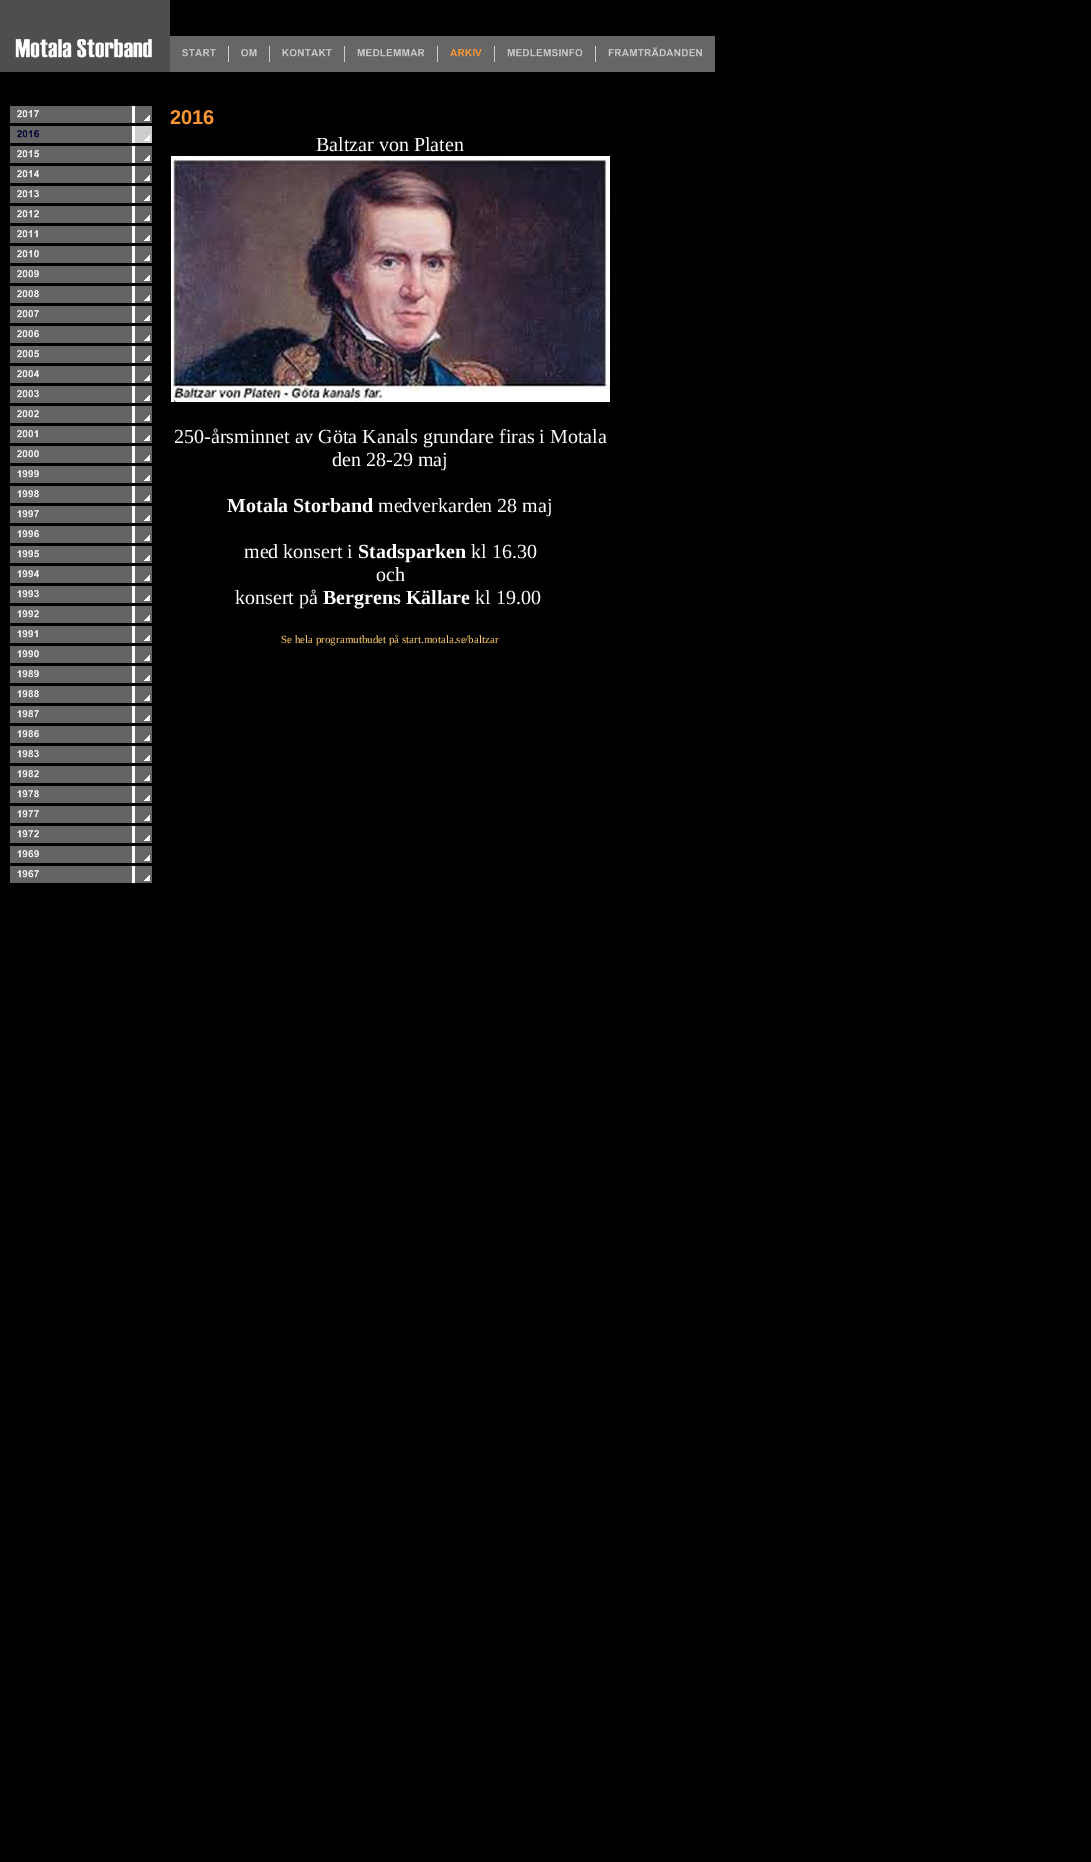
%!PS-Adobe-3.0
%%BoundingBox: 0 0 1091 1862
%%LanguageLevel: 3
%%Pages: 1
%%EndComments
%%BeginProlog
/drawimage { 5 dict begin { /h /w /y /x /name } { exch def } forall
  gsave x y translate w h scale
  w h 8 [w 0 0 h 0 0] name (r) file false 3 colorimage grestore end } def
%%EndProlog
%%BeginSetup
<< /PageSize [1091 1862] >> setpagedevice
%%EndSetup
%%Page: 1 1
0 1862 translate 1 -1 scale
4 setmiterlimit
0 setgray
0 0 1091 1862 rectfill
(images/1.raw) 0 0 170 72 drawimage
(images/2.raw) 170 36 58 36 drawimage
(images/3.raw) 228 36 1 36 drawimage
(images/4.raw) 229 36 40 36 drawimage
(images/3.raw) 269 36 1 36 drawimage
(images/5.raw) 270 36 74 36 drawimage
(images/3.raw) 344 36 1 36 drawimage
(images/6.raw) 345 36 92 36 drawimage
(images/3.raw) 437 36 1 36 drawimage
(images/7.raw) 438 36 56 36 drawimage
(images/3.raw) 494 36 1 36 drawimage
(images/8.raw) 495 36 100 36 drawimage
(images/3.raw) 595 36 1 36 drawimage
(images/9.raw) 596 36 119 36 drawimage
(images/10.raw) 10 106 142 17 drawimage
(images/11.raw) 10 126 142 17 drawimage
(images/12.raw) 10 146 142 17 drawimage
(images/13.raw) 10 166 142 17 drawimage
(images/14.raw) 10 186 142 17 drawimage
(images/15.raw) 10 206 142 17 drawimage
(images/16.raw) 10 226 142 17 drawimage
(images/17.raw) 10 246 142 17 drawimage
(images/18.raw) 10 266 142 17 drawimage
(images/19.raw) 10 286 142 17 drawimage
(images/20.raw) 10 306 142 17 drawimage
(images/21.raw) 10 326 142 17 drawimage
(images/22.raw) 10 346 142 17 drawimage
(images/23.raw) 10 366 142 17 drawimage
(images/24.raw) 10 386 142 17 drawimage
(images/25.raw) 10 406 142 17 drawimage
(images/26.raw) 10 426 142 17 drawimage
(images/27.raw) 10 446 142 17 drawimage
(images/28.raw) 10 466 142 17 drawimage
(images/29.raw) 10 486 142 17 drawimage
(images/30.raw) 10 506 142 17 drawimage
(images/31.raw) 10 526 142 17 drawimage
(images/32.raw) 10 546 142 17 drawimage
(images/33.raw) 10 566 142 17 drawimage
(images/34.raw) 10 586 142 17 drawimage
(images/35.raw) 10 606 142 17 drawimage
(images/36.raw) 10 626 142 17 drawimage
(images/37.raw) 10 646 142 17 drawimage
(images/38.raw) 10 666 142 17 drawimage
(images/39.raw) 10 686 142 17 drawimage
(images/40.raw) 10 706 142 17 drawimage
(images/41.raw) 10 726 142 17 drawimage
(images/42.raw) 10 746 142 17 drawimage
(images/43.raw) 10 766 142 17 drawimage
(images/44.raw) 10 786 142 17 drawimage
(images/45.raw) 10 806 142 17 drawimage
(images/46.raw) 10 826 142 17 drawimage
(images/47.raw) 10 846 142 17 drawimage
(images/48.raw) 10 866 142 17 drawimage
(images/49.raw) 171 156 439 246 drawimage
/LiberationSans-Bold [20 0 0 -20 0 0] selectfont
1 0.6 0.2 setrgbcolor
170 124 moveto (2016) show
/LiberationSerif-Regular [20 0 0 -20 0 0] selectfont
1 setgray
316 151 moveto (Baltzar von Platen) show
174 443 moveto (250-årsminnet av Göta Kanals grundare firas i Motala) show
332 466 moveto (den 28-29 maj) show
/LiberationSerif-Bold [20 0 0 -20 0 0] selectfont
227 512 moveto (Motala Storband) show
/LiberationSerif-Regular [20 0 0 -20 0 0] selectfont
378 512 moveto (medverkarden 28 maj) show
244 558 moveto (med konsert i) show
/LiberationSerif-Bold [20 0 0 -20 0 0] selectfont
358 558 moveto (Stadsparken) show
/LiberationSerif-Regular [20 0 0 -20 0 0] selectfont
471 558 moveto (kl 16.30) show
376 581 moveto (och) show
235 604 moveto (konsert på) show
/LiberationSerif-Bold [20 0 0 -20 0 0] selectfont
323 604 moveto (Bergrens Källare) show
/LiberationSerif-Regular [20 0 0 -20 0 0] selectfont
475 604 moveto (kl 19.00) show
/LiberationSerif-Regular [11 0 0 -11 0 0] selectfont
1 0.8 0.4 setrgbcolor
281 643 moveto (Se hela programutbudet på start.motala.se/baltzar) show
showpage
%%EOF
